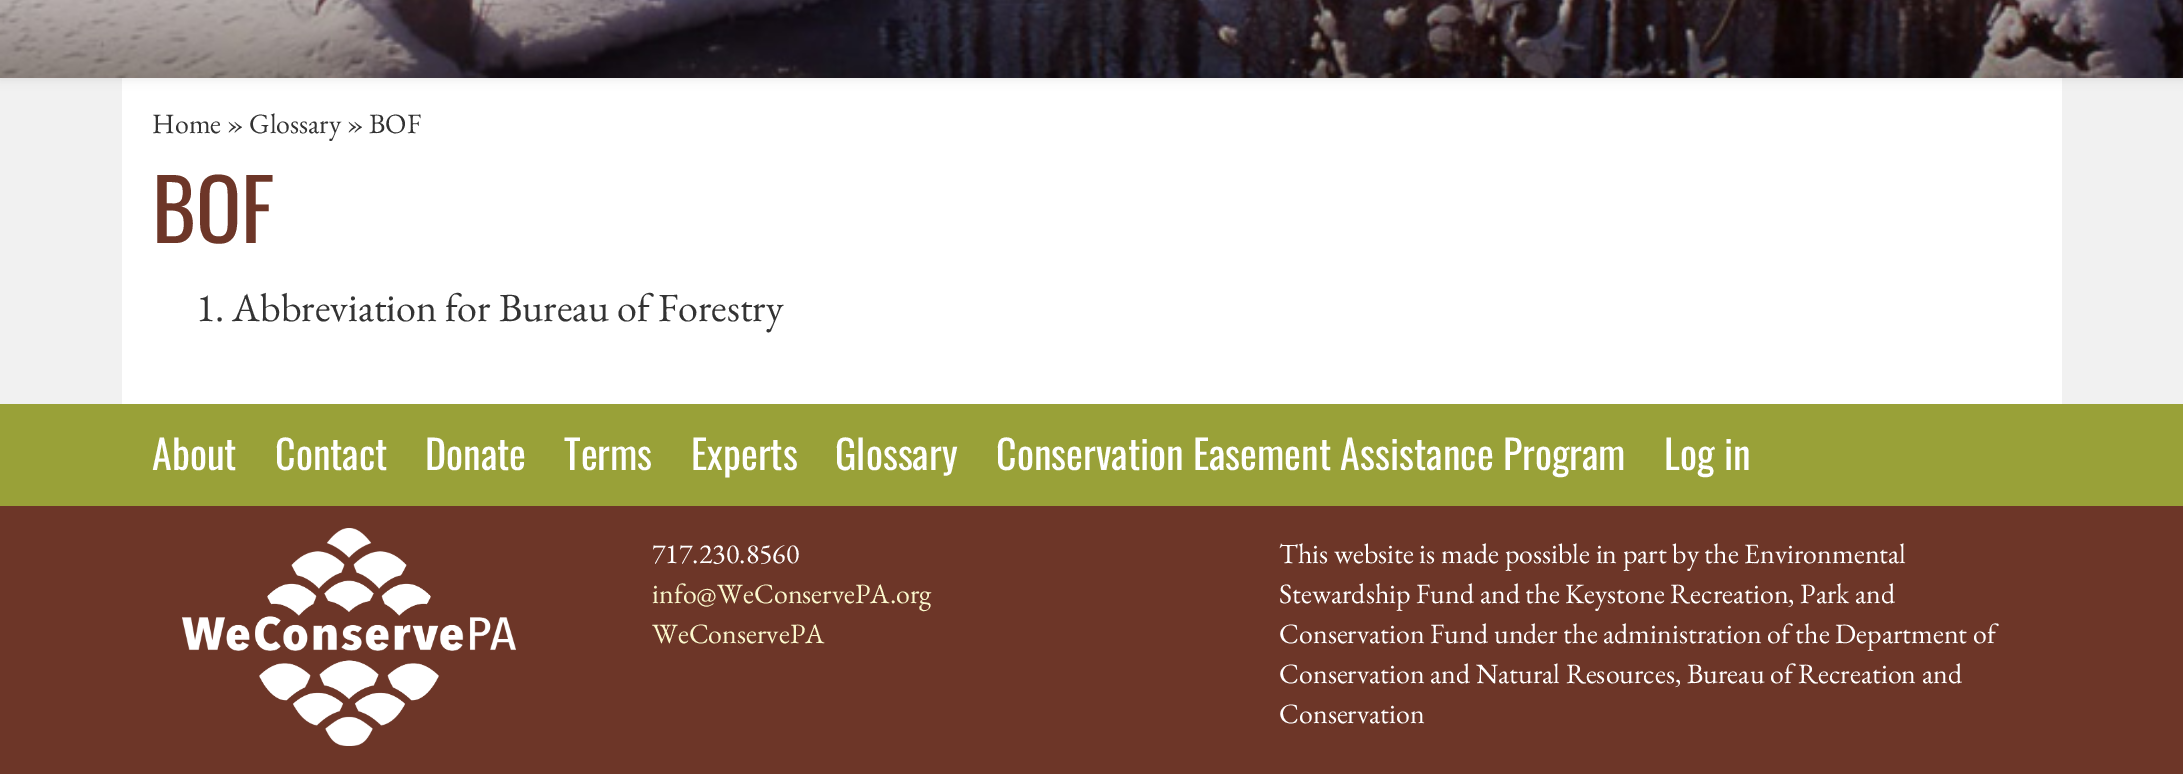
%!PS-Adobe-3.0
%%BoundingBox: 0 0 2183 774
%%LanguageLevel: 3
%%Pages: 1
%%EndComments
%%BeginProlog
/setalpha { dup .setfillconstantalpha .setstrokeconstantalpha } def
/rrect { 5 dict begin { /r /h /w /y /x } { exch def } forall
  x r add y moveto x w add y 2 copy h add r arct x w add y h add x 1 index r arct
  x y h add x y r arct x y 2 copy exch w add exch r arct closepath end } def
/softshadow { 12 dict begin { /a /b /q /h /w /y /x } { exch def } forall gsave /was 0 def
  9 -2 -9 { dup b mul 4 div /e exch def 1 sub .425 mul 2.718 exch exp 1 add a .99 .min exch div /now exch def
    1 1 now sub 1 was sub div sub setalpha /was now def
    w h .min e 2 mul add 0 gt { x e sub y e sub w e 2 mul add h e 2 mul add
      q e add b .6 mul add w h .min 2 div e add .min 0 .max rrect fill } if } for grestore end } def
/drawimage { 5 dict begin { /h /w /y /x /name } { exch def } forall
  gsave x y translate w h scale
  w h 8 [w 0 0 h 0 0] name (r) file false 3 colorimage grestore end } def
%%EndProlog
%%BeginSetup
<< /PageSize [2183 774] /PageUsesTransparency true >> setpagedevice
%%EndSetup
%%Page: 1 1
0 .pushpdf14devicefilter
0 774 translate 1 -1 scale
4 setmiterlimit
0.945 setgray
0 0 2183 774 rectfill
1 setgray
122 78 1940 326 rectfill
0 setgray
0 -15 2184 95 0 5 0.07 softshadow
(images/1.raw) 0 0 2183 78 drawimage
0.6 0.631 0.22 setrgbcolor
0 404 2183 102 rectfill
0.427 0.212 0.157 setrgbcolor
0 506 2183 268 rectfill
(images/2.raw) 182 528 334 218 drawimage
/EBGaramond-Regular [28 0 0 -28 0 0] selectfont
0.2 setgray
152 133 moveto (Home » Glossary » BOF) show
/Oswald-Regular [84 0 0 -84 0 0] selectfont
0.427 0.212 0.157 setrgbcolor
152 243 moveto (BOF) show
/EBGaramond-Regular [40 0 0 -40 0 0] selectfont
0.2 setgray
196 321 moveto (1. Abbreviation for Bureau of Forestry) show
/Oswald-Regular [40 0 0 -40 0 0] selectfont
1 setgray
152 470 moveto (About) show
275 470 moveto (Contact) show
425 470 moveto (Donate) show
564 470 moveto (Terms) show
691 470 moveto (Experts) show
835 470 moveto (Glossary) show
996 470 moveto (Conservation Easement Assistance Program) show
1664 470 moveto (Log in) show
/EBGaramond-Regular [28 0 0 -28 0 0] selectfont
652 563 moveto (717.230.8560) show
0.98 0.973 0.8 setrgbcolor
652 603 moveto (info@WeConservePA.org) show
652 643 moveto (WeConservePA) show
1 setgray
1279 563 moveto (This website is made possible in part by the Environmental) show
1279 603 moveto (Stewardship Fund and the Keystone Recreation, Park and) show
1279 643 moveto (Conservation Fund under the administration of the Department of) show
1279 683 moveto (Conservation and Natural Resources, Bureau of Recreation and) show
1279 723 moveto (Conservation) show
.poppdf14devicefilter showpage
%%EOF
